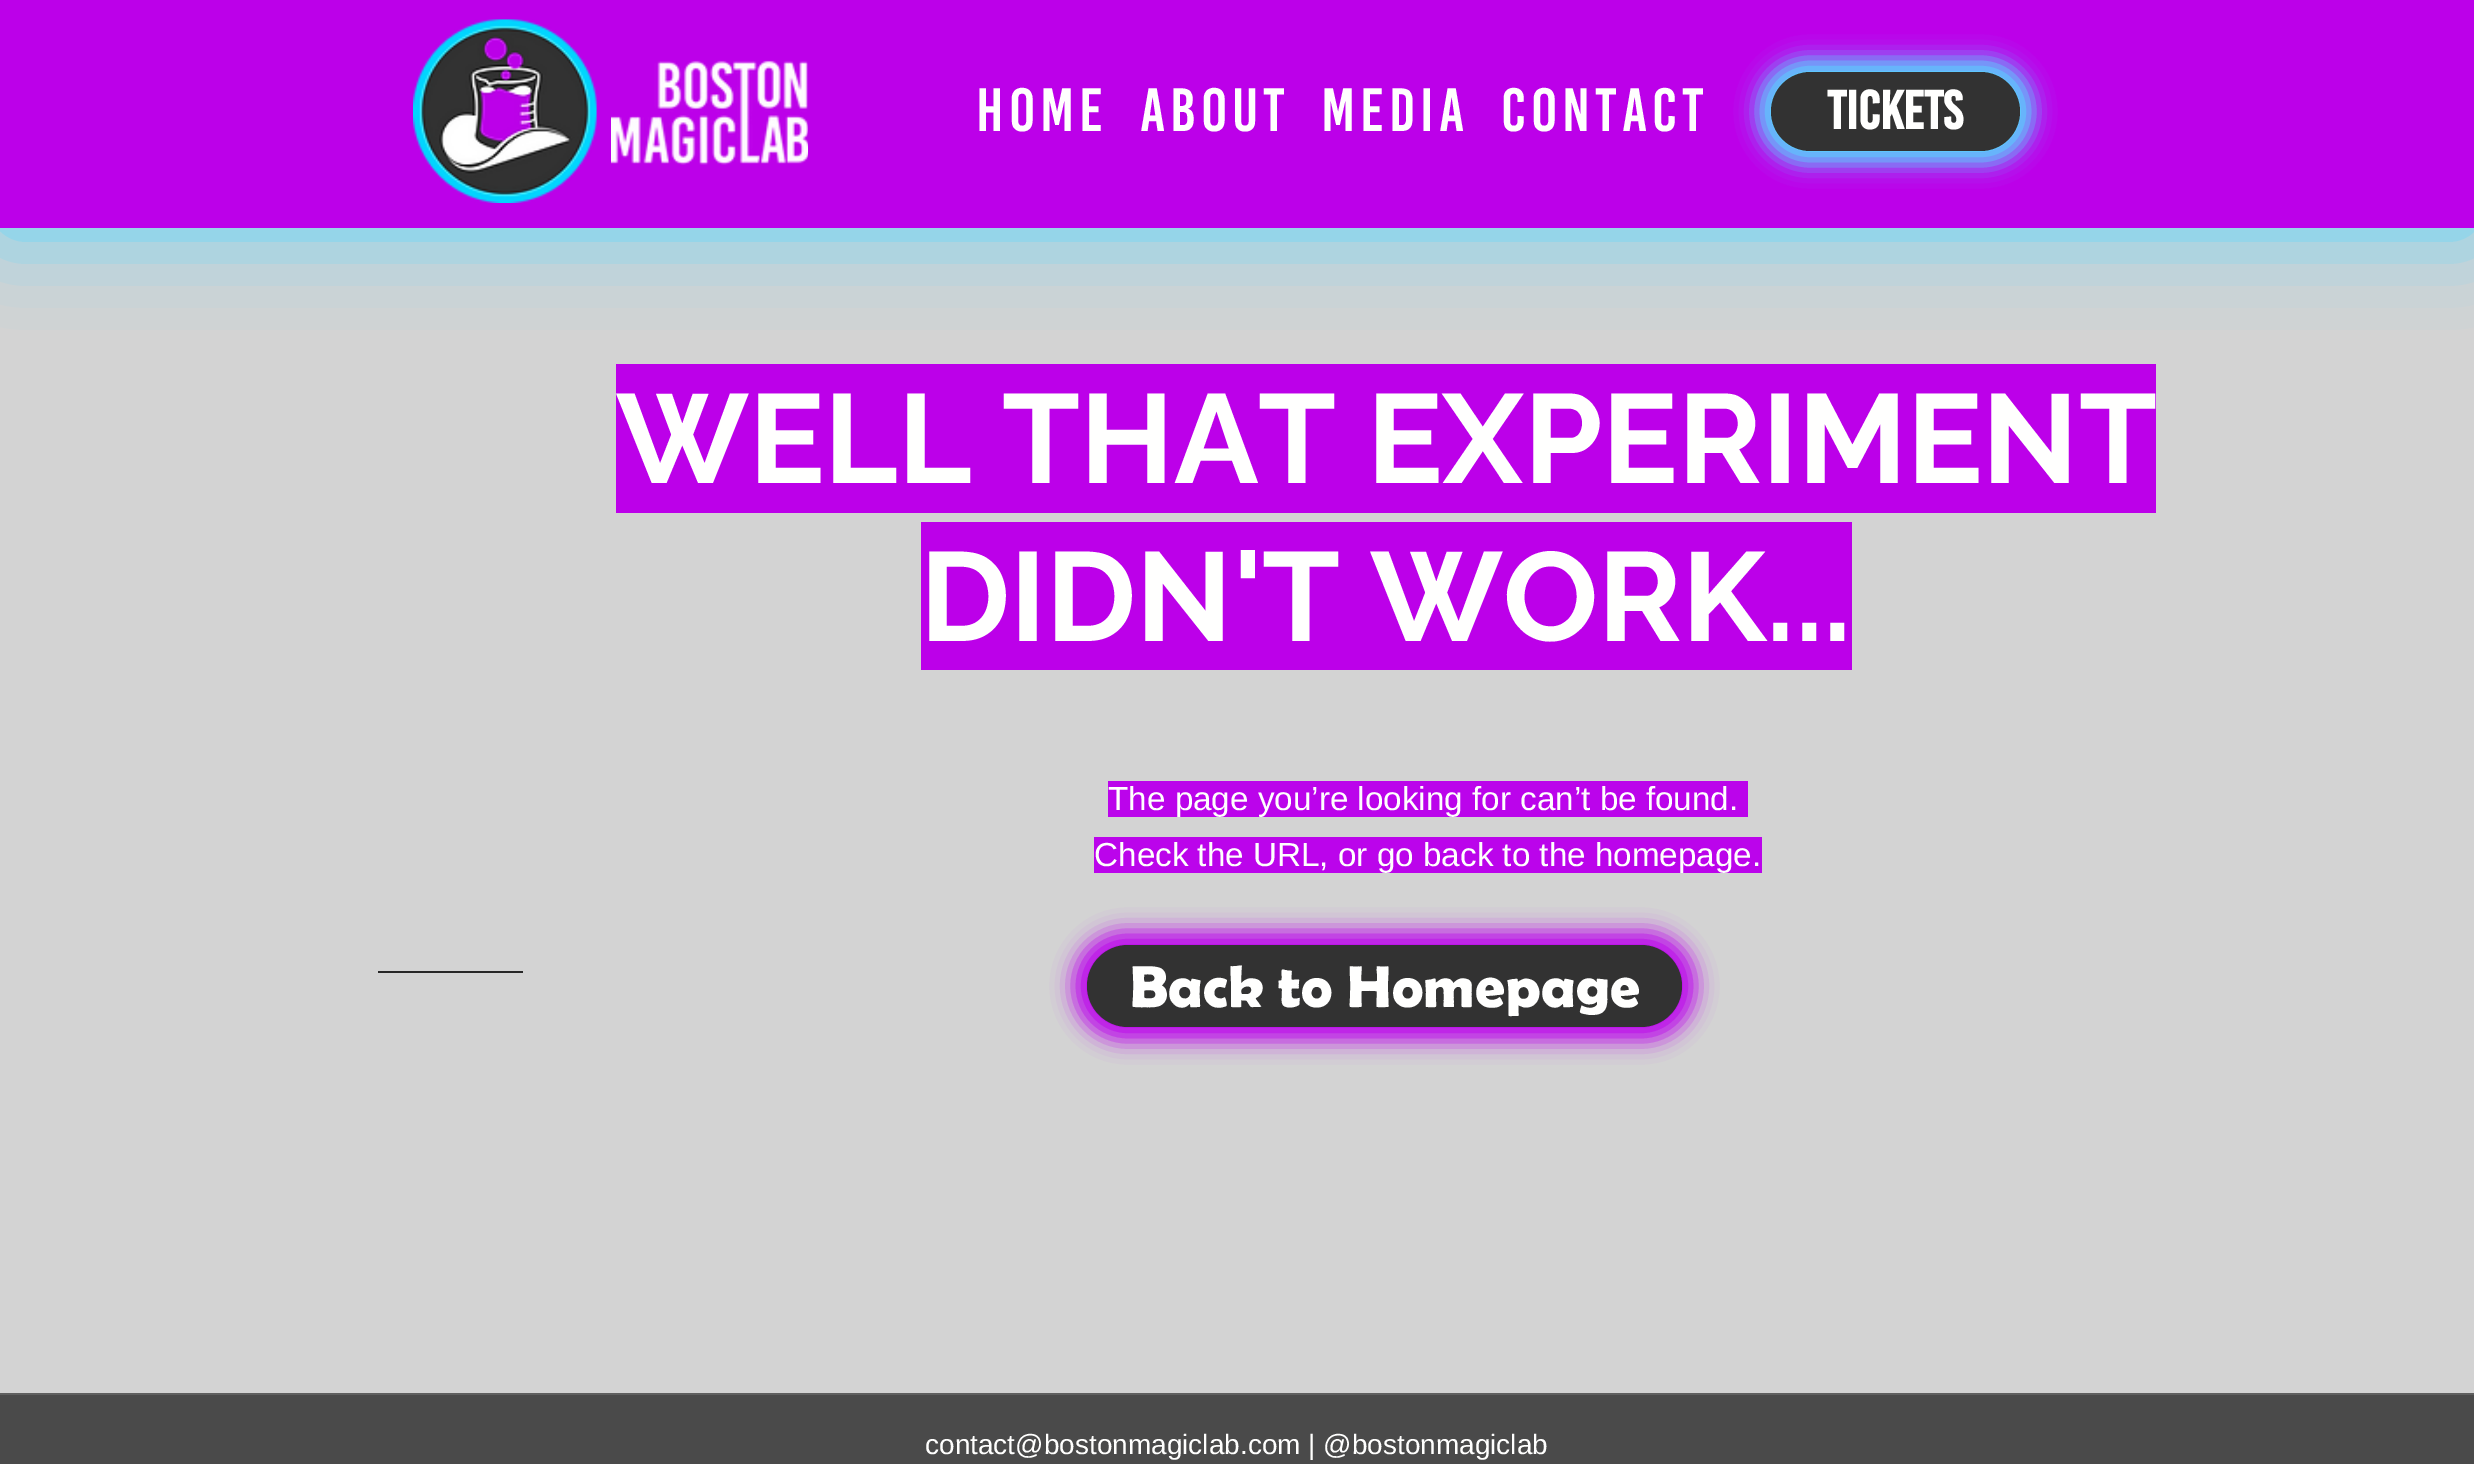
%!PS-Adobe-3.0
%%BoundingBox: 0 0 2474 1464
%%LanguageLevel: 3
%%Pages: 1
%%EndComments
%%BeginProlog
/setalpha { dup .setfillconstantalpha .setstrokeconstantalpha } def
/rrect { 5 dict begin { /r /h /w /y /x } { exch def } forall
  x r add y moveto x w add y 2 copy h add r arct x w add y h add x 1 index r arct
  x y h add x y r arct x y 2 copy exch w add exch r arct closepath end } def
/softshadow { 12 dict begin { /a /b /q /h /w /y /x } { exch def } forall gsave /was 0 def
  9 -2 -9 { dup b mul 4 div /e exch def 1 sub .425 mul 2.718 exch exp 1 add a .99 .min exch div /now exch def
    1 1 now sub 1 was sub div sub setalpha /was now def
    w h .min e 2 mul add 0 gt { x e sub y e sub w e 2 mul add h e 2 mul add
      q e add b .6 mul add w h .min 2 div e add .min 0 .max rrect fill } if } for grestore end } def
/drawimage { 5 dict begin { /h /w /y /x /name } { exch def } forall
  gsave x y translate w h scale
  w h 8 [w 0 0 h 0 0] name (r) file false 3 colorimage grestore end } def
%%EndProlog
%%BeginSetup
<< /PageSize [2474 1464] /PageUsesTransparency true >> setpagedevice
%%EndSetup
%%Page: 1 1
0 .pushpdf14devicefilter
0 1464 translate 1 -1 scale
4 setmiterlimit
0.827 setgray
0 0 2474 1464 rectfill
0.337 0.847 1 setrgbcolor
0 4 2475 227 0 44 1 softshadow
0.737 0 0.914 setrgbcolor
0 0 2474 228 rectfill
(images/1.raw) 413 19 184 184 drawimage
(images/2.raw) 611 60 198 105 drawimage
0.337 0.847 1 setrgbcolor
1757 58 277 107 53.5 10.5 1 softshadow
0.196 setgray
1771 72 249 79 39.5 rrect fill
0.737 0 0.914 setrgbcolor
616 364 1540 149 rectfill
921 522 931 148 rectfill
0.733 0.016 0.922 setrgbcolor
1108 781 640 36 rectfill
1094 837 668 36 rectfill
0.153 setgray
378 971 145 2 rectfill
0.733 0.016 0.922 setrgbcolor
1073 931 623 110 55 10.5 1 softshadow
0.196 setgray
1087 945 595 82 41 rrect fill
0.29 setgray
0 1395 2474 69 rectfill
0.373 setgray
0 1393 2474 2 rectfill
/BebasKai-Regular [61 0 0 -61 0 0] selectfont
1 1 0.996 setrgbcolor
976 131 moveto 5 0 (Home) ashow
1140 131 moveto 5 0 (About) ashow
1321 131 moveto 5 0 (Media) ashow
1501 131 moveto 5 0 (Contact) ashow
/BebasKai-Bold [54 0 0 -54 0 0] selectfont
1827 129 moveto (Tickets) show
/Raleway-Bold [126 0 0 -126 0 0] selectfont
616 483 moveto (WELL THAT EXPERIMENT) show
920 641 moveto (DIDN'T WORK...) show
/LiberationSans-Regular [33.25 0 0 -33.25 0 0] selectfont
1108 810 moveto (The page you’re looking for can’t be found.) show
1094 866 moveto (Check the URL, or go back to the homepage.) show
/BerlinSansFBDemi-SemiBold [59.5 0 0 -59.5 0 0] selectfont
1130 1007 moveto (Back to Homepage) show
/LiberationSans-Regular [28 0 0 -28 0 0] selectfont
925 1454 moveto (contact@bostonmagiclab.com | @bostonmagiclab) show
.poppdf14devicefilter showpage
%%EOF
